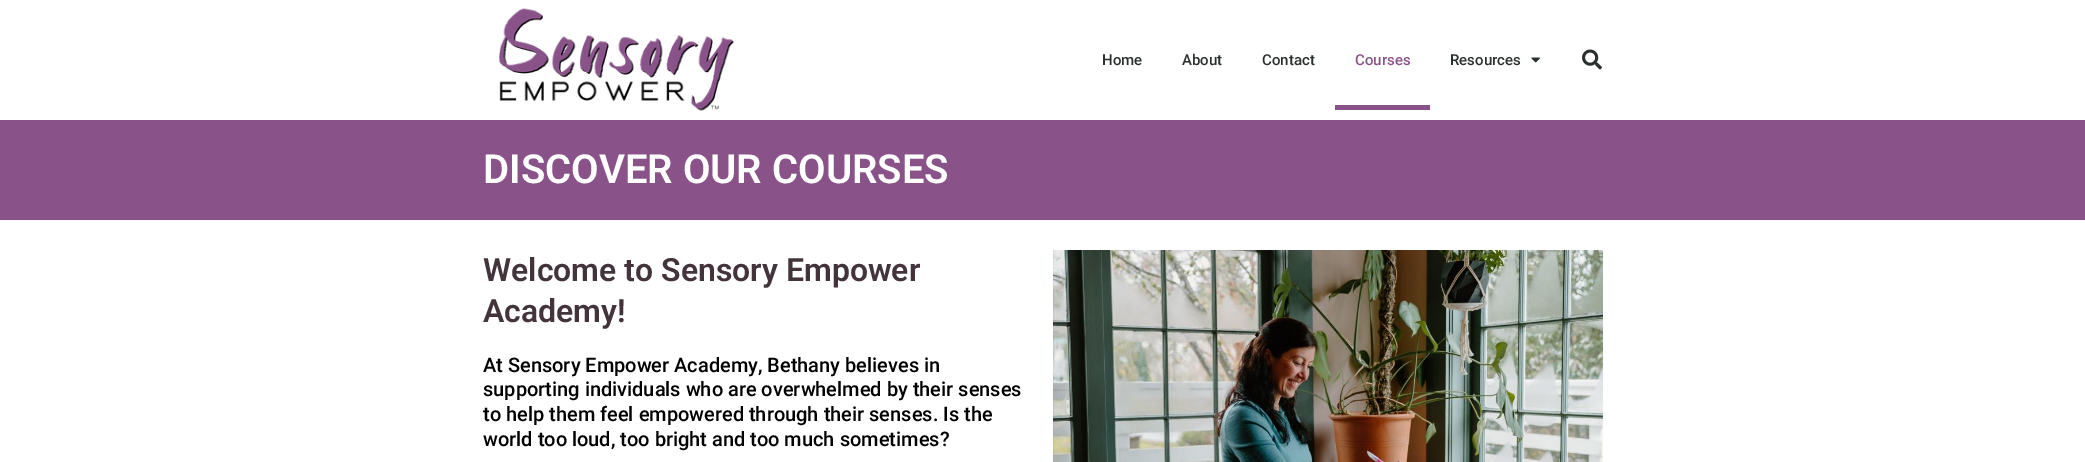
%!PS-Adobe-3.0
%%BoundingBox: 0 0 2085 462
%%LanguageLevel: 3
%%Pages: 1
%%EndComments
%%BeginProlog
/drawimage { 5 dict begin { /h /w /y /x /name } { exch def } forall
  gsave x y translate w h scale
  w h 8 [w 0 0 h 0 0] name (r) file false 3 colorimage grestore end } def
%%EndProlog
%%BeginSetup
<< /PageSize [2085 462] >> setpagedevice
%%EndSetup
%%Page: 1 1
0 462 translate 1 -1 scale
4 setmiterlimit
1 setgray
0 0 2085 462 rectfill
(images/1.raw) 498 8 236 103 drawimage
0.537 0.325 0.537 setrgbcolor
1335 105 95 5 rectfill
(images/2.raw) 1531 57 9 6 drawimage
(images/3.raw) 1582 49 20 21 drawimage
0 120 2085 100 rectfill
(images/4.raw) 1053 250 550 212 drawimage
/Roboto-Medium [15 0 0 -15 0 0] selectfont
0.165 0.188 0.184 setrgbcolor
1102 65 moveto (Home) show
1182 65 moveto (About) show
1262 65 moveto (Contact) show
0.537 0.325 0.537 setrgbcolor
1355 65 moveto (Courses) show
0.165 0.188 0.184 setrgbcolor
1450 65 moveto (Resources) show
/Roboto-SemiBold [40 0 0 -40 0 0] selectfont
1 setgray
483 183 moveto (DISCOVER OUR COURSES) show
/Roboto-SemiBold [32 0 0 -32 0 0] selectfont
0.263 0.204 0.231 setrgbcolor
483 281 moveto (Welcome to Sensory Empower) show
483 322 moveto (Academy!) show
/Roboto-Medium [20 0 0 -20 0 0] selectfont
0 setgray
483 372 moveto (At Sensory Empower Academy, Bethany believes in) show
483 396 moveto (supporting individuals who are overwhelmed by their senses) show
483 421 moveto (to help them feel empowered through their senses. Is the) show
483 446 moveto (world too loud, too bright and too much sometimes?) show
showpage
%%EOF
